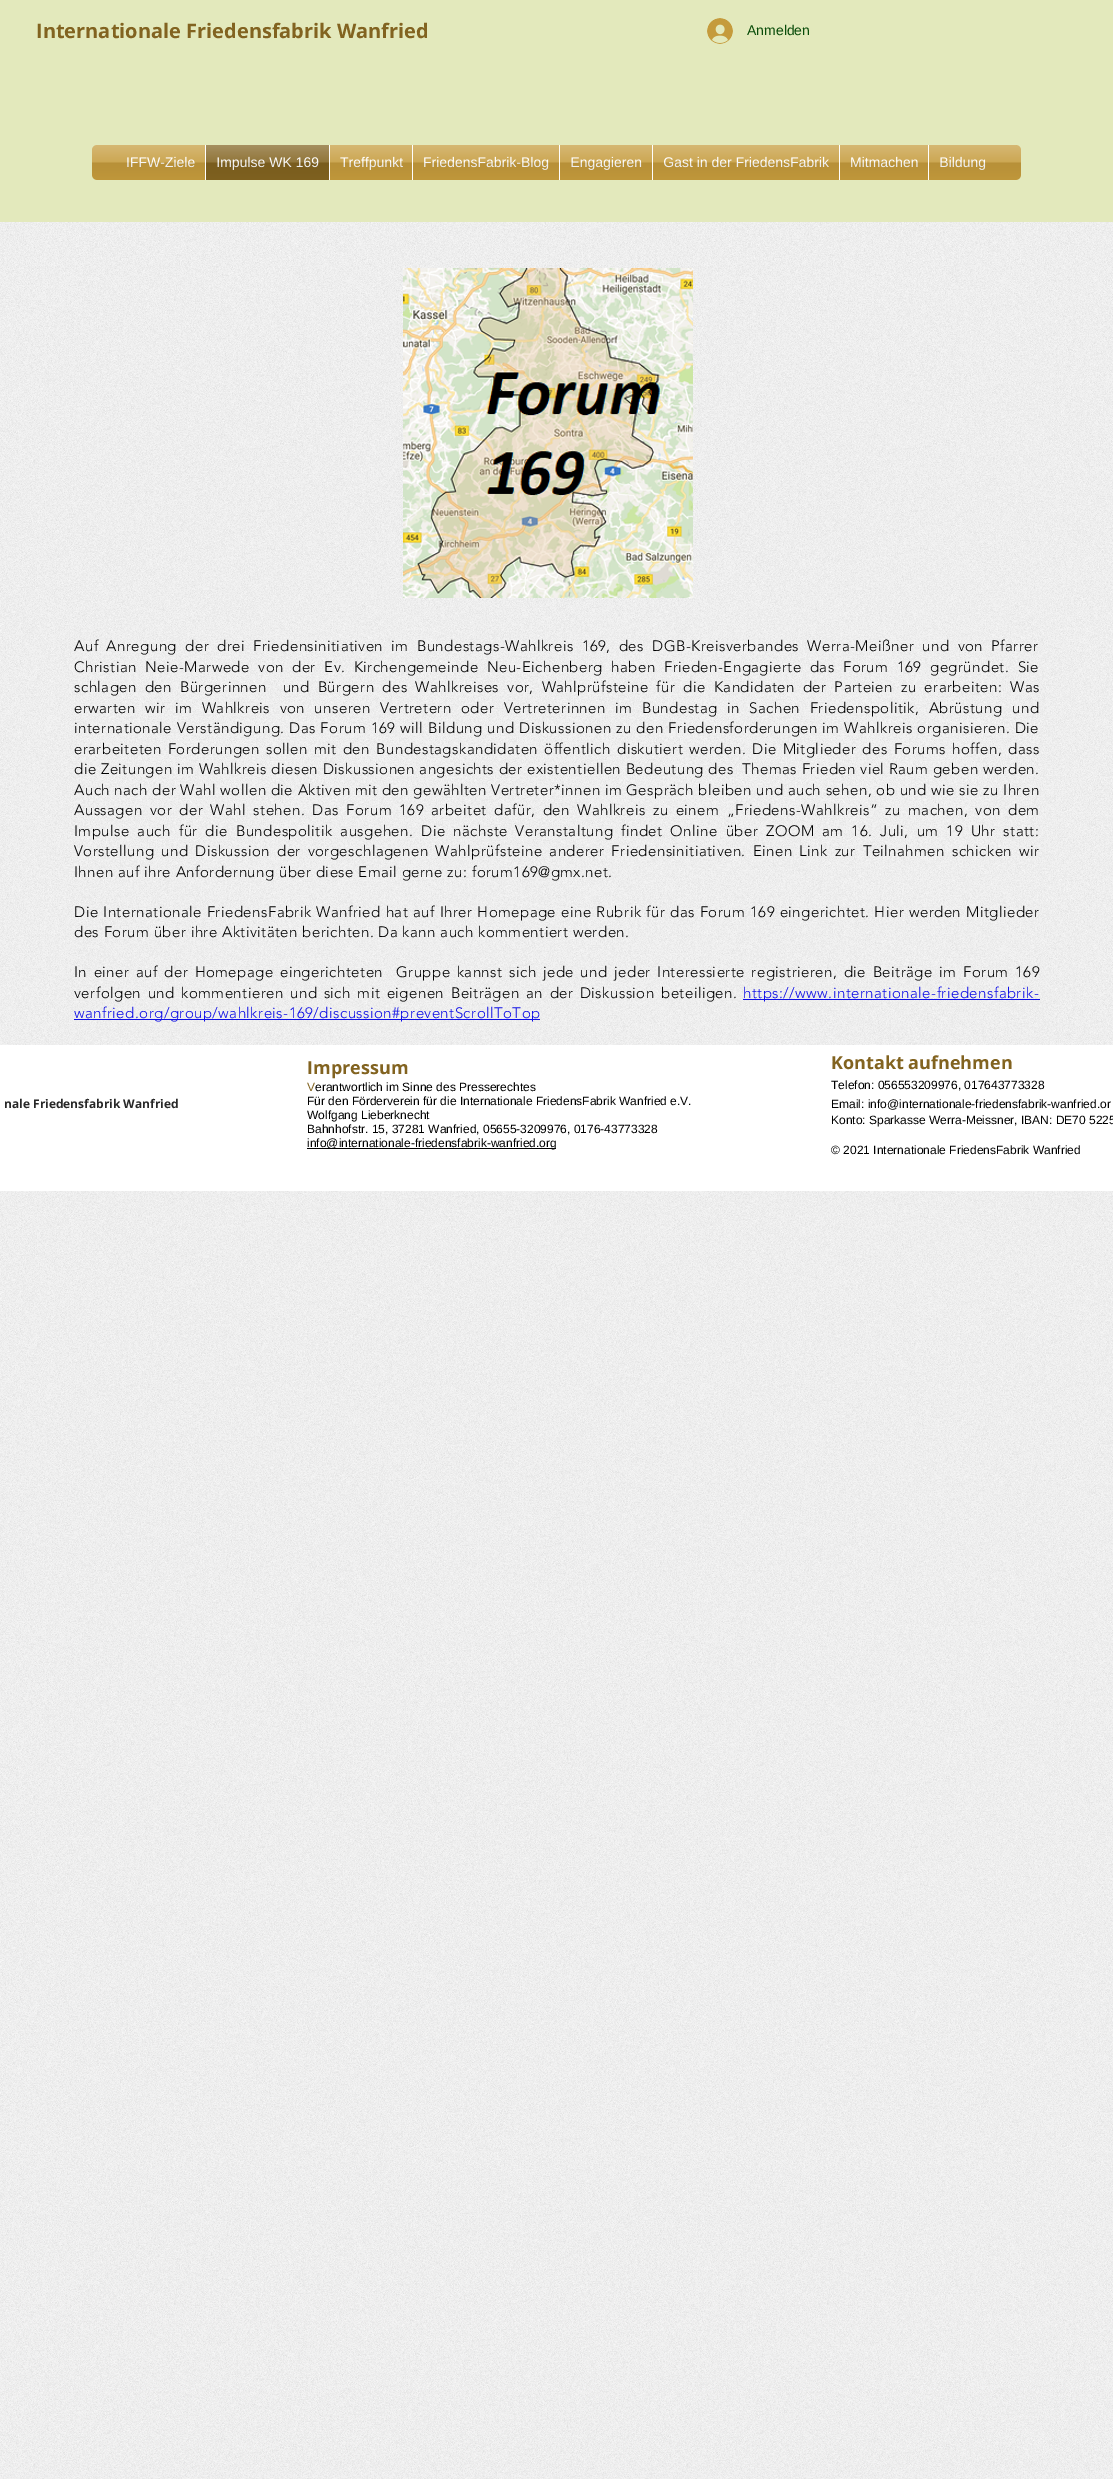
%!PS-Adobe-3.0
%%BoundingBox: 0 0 1113 2479
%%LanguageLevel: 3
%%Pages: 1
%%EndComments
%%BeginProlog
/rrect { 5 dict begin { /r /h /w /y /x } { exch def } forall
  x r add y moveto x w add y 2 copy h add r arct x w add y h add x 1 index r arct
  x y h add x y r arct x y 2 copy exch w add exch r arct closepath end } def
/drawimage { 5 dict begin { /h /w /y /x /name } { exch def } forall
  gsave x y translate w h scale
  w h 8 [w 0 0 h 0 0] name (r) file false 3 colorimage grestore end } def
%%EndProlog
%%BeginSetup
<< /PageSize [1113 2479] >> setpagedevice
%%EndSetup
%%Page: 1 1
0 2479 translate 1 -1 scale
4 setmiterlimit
1 setgray
0 0 1113 2479 rectfill
0.89 0.914 0.737 setrgbcolor
0 0 1113 222 rectfill
(images/1.raw) 707 18 26 26 drawimage
0.773 0.608 0.235 setrgbcolor
92 145 929 35 5 rrect fill
(images/2.raw) 92 145 929 35 drawimage
116 145 89 35 rectfill
0.51 0.388 0.125 setrgbcolor
206 145 123 35 rectfill
1 setgray
205 145 1 35 rectfill
0.773 0.608 0.235 setrgbcolor
330 145 82 35 rectfill
1 setgray
329 145 1 35 rectfill
0.773 0.608 0.235 setrgbcolor
413 145 146 35 rectfill
1 setgray
412 145 1 35 rectfill
0.773 0.608 0.235 setrgbcolor
560 145 92 35 rectfill
1 setgray
559 145 1 35 rectfill
0.773 0.608 0.235 setrgbcolor
653 145 186 35 rectfill
1 setgray
652 145 1 35 rectfill
0.773 0.608 0.235 setrgbcolor
840 145 88 35 rectfill
1 setgray
839 145 1 35 rectfill
0.773 0.608 0.235 setrgbcolor
929 145 67 35 rectfill
1 setgray
928 145 1 35 rectfill
(images/12.raw) 0 222 1113 2257 drawimage
(images/11.raw) 403 268 290 330 drawimage
0.055 0.055 0.902 setrgbcolor
743 999 297 1 rectfill
74 1019 466 1 rectfill
1 setgray
0 1045 1113 146 rectfill
0 setgray
307 1148 249 1 rectfill
/OpenSans-Bold [20 0 0 -20 0 0] selectfont
0.51 0.388 0.125 setrgbcolor
36 38 moveto (Internationale Friedensfabrik Wanfried) show
/LiberationSans-Regular [14 0 0 -14 0 0] selectfont
0.035 0.298 0.035 setrgbcolor
747 35 moveto (Anmelden) show
1 setgray
126 167 moveto (IFFW-Ziele) show
(images/3.raw) 116 145 89 35 drawimage
216 167 moveto (Impulse WK 169) show
(images/4.raw) 206 145 123 35 drawimage
340 167 moveto (Treffpunkt) show
(images/5.raw) 330 145 82 35 drawimage
423 167 moveto (FriedensFabrik-Blog) show
(images/6.raw) 413 145 146 35 drawimage
570 167 moveto (Engagieren) show
(images/7.raw) 560 145 92 35 drawimage
663 167 moveto (Gast in der FriedensFabrik) show
(images/8.raw) 653 145 186 35 drawimage
850 167 moveto (Mitmachen) show
(images/9.raw) 840 145 88 35 drawimage
939 167 moveto (Bildung) show
(images/10.raw) 929 145 67 35 drawimage
/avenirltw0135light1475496-Light [15 0 0 -15 0 0] selectfont
0 setgray
74 651 moveto 3.75 0 32 0.45 0 (Auf Anregung der drei Friedensinitiativen im Bundestags-Wahlkreis 169, des DGB-Kreisverbandes Werra-Meißner und von Pfarrer) awidthshow
74 672 moveto 4 0 32 0.45 0 (Christian Neie-Marwede von der Ev. Kirchengemeinde Neu-Eichenberg haben Frieden-Engagierte das Forum 169 gegründet. Sie) awidthshow
74 692 moveto 3.5 0 32 0.45 0 (schlagen den Bürgerinnen  und Bürgern des Wahlkreises vor, Wahlprüfsteine für die Kandidaten der Parteien zu erarbeiten: Was) awidthshow
74 713 moveto 5 0 32 0.45 0 (erwarten wir im Wahlkreis von unseren Vertretern oder Vertreterinnen im Bundestag in Sachen Friedenspolitik, Abrüstung und) awidthshow
74 733 moveto 0.3 0 32 0.45 0 (internationale Verständigung. Das Forum 169 will Bildung und Diskussionen zu den Friedensforderungen im Wahlkreis organisieren. Die) awidthshow
74 754 moveto 1.75 0 32 0.45 0 (erarbeiteten Forderungen sollen mit den Bundestagskandidaten öffentlich diskutiert werden. Die Mitglieder des Forums hoffen, dass) awidthshow
74 774 moveto 0.45 0 (die Zeitungen im Wahlkreis diesen Diskussionen angesichts der existentiellen Bedeutung des  Themas Frieden viel Raum geben werden.) ashow
74 795 moveto 0.45 0 (Auch nach der Wahl wollen die Aktiven mit den gewählten Vertreter*innen im Gespräch bleiben und auch sehen, ob und wie sie zu Ihren) ashow
74 815 moveto 2.9 0 32 0.45 0 (Aussagen vor der Wahl stehen. Das Forum 169 arbeitet dafür, den Wahlkreis zu einem „Friedens-Wahlkreis“ zu machen, von dem) awidthshow
74 836 moveto 3.4 0 32 0.45 0 (Impulse auch für die Bundespolitik ausgehen. Die nächste Veranstaltung findet Online über ZOOM am 16. Juli, um 19 Uhr statt:) awidthshow
74 856 moveto 2.5 0 32 0.45 0 (Vorstellung und Diskussion der vorgeschlagenen Wahlprüfsteine anderer Friedensinitiativen. Einen Link zur Teilnahmen schicken wir) awidthshow
74 877 moveto 0.45 0 (Ihnen auf ihre Anfordernung über diese Email gerne zu: forum169@gmx.net.) ashow
74 917 moveto 0.5 0 32 0.45 0 (Die Internationale FriedensFabrik Wanfried hat auf Ihrer Homepage eine Rubrik für das Forum 169 eingerichtet. Hier werden Mitglieder) awidthshow
74 937 moveto 0.45 0 (des Forum über ihre Aktivitäten berichten. Da kann auch kommentiert werden.) ashow
74 977 moveto 2.1 0 32 0.45 0 (In einer auf der Homepage eingerichteten  Gruppe kannst sich jede und jeder Interessierte registrieren, die Beiträge im Forum 169) awidthshow
74 998 moveto 2.1 0 32 0.45 0 (verfolgen und kommentieren und sich mit eigenen Beiträgen an der Diskussion beteiligen.) awidthshow
0.055 0.055 0.902 setrgbcolor
743 998 moveto 0.45 0 (https://www.internationale-friedensfabrik-) ashow
74 1018 moveto 0.45 0 (wanfried.org/group/wahlkreis-169/discussion#preventScrollToTop) ashow
/OpenSans-Bold [12 0 0 -12 0 0] selectfont
0.157 setgray
4 1108 moveto (nale Friedensfabrik Wanfried) show
/OpenSans-Bold [18 0 0 -18 0 0] selectfont
0.51 0.388 0.125 setrgbcolor
307 1074 moveto (Impressum) show
/LiberationSans-Regular [12 0 0 -12 0 0] selectfont
307 1091 moveto (V) show
0 setgray
315 1091 moveto (erantwortlich im Sinne des Presserechtes) show
307 1105 moveto (Für den Förderverein für die Internationale FriedensFabrik Wanfried e.V.) show
307 1119 moveto (Wolfgang Lieberknecht) show
307 1133 moveto (Bahnhofstr. 15, 37281 Wanfried, 05655-3209976, 0176-43773328) show
307 1147 moveto (info@internationale-friedensfabrik-wanfried.org) show
/OpenSans-Bold [18 0 0 -18 0 0] selectfont
0.51 0.388 0.125 setrgbcolor
831 1069 moveto (Kontakt aufnehmen) show
/LiberationSans-Regular [12 0 0 -12 0 0] selectfont
0 setgray
831 1089 moveto (Telefon: 056553209976, 017643773328) show
831 1108 moveto (Email: info@internationale-friedensfabrik-wanfried.or) show
831 1124 moveto (Konto: Sparkasse Werra-Meissner, IBAN: DE70 5225) show
831 1154 moveto (© 2021 Internationale FriedensFabrik Wanfried) show
showpage
%%EOF
